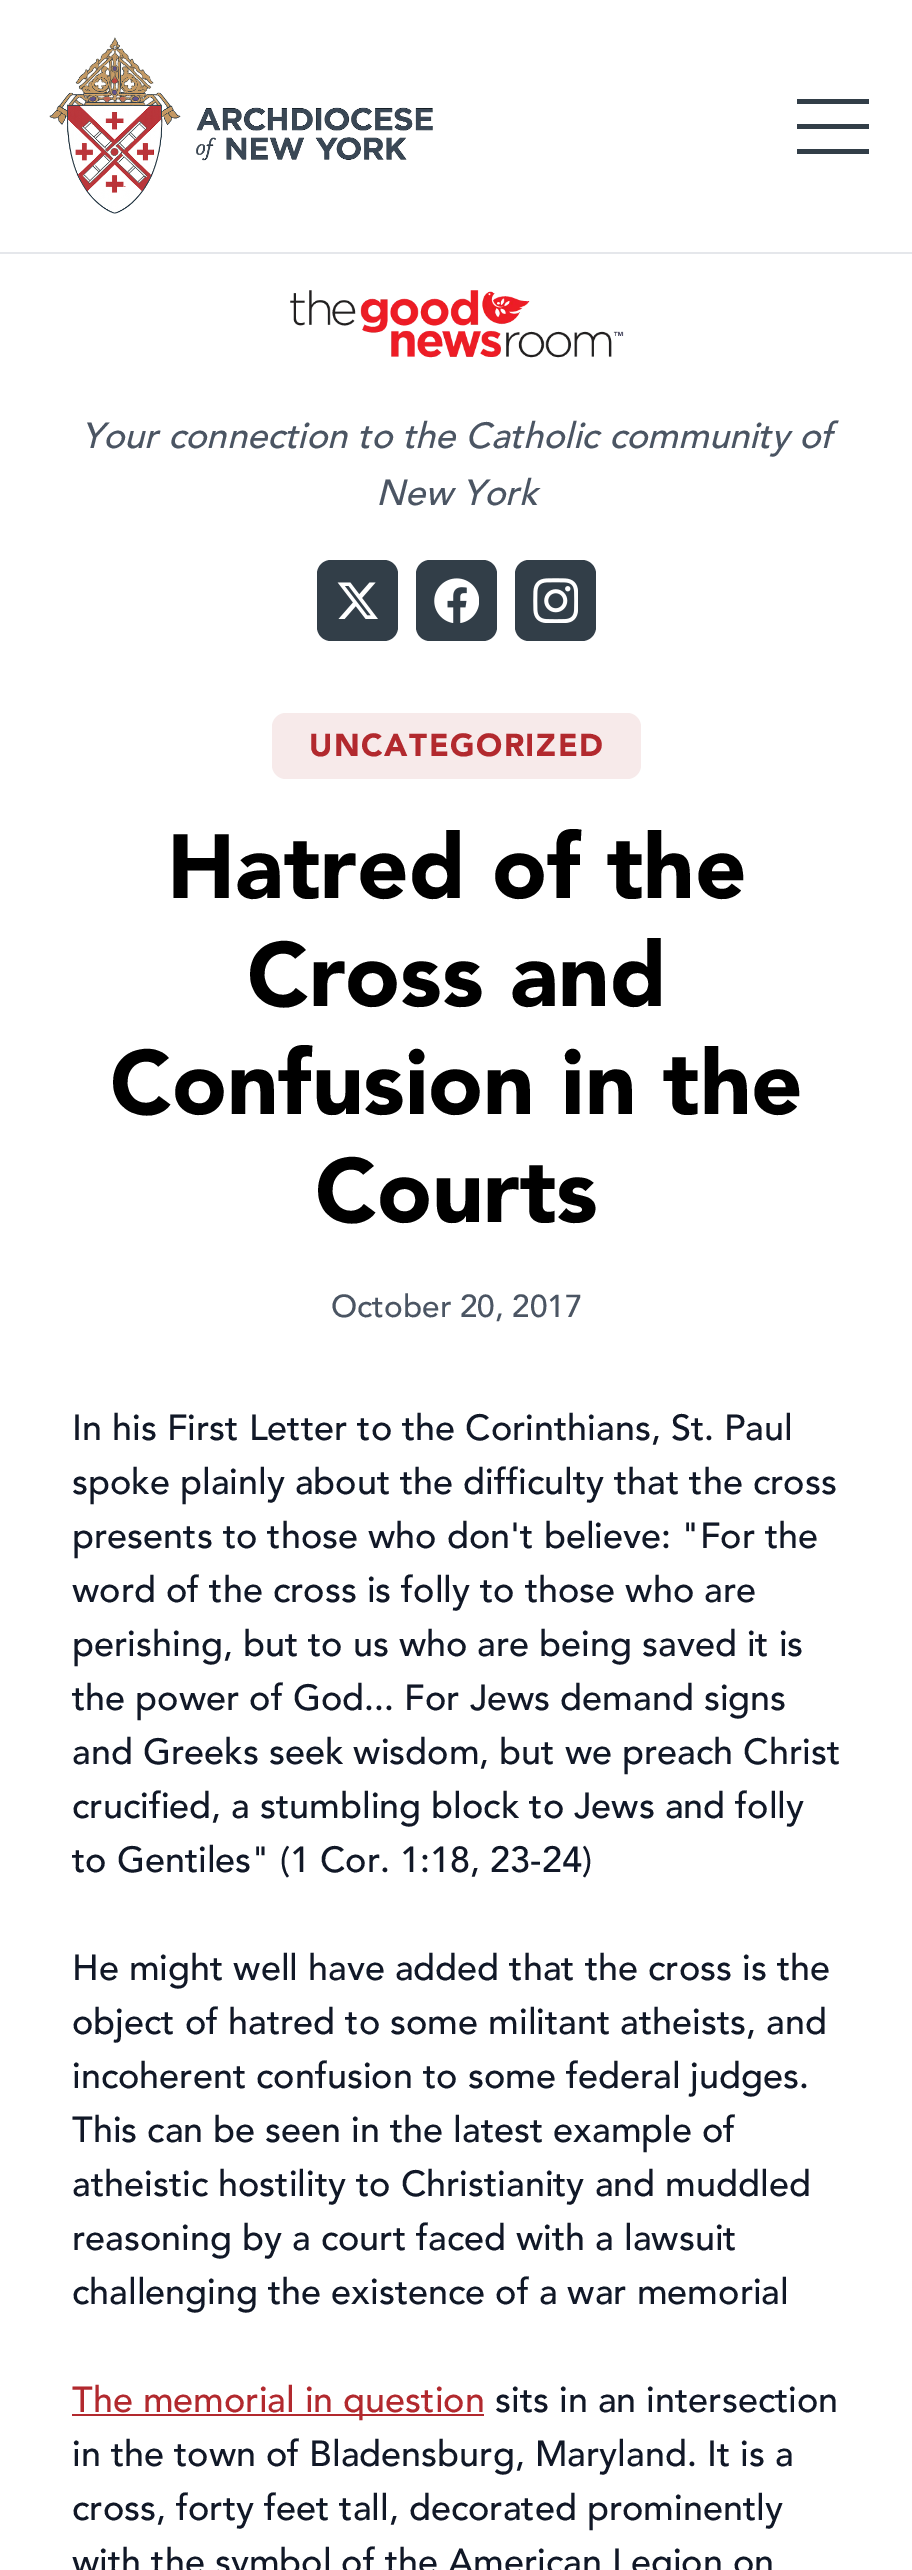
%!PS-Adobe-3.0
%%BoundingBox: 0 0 912 2570
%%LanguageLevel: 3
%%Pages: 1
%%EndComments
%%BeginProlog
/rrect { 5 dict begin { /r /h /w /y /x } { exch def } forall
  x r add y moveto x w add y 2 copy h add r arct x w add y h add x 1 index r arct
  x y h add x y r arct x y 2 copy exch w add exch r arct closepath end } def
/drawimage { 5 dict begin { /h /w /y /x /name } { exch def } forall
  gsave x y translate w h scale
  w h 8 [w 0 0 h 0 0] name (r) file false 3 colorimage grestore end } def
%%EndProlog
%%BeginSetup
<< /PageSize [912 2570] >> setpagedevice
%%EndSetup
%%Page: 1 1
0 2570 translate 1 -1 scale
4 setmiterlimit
1 setgray
0 0 912 2570 rectfill
0.898 0.906 0.922 setrgbcolor
0 252 912 2 rectfill
(images/1.raw) 49 37 384 177 drawimage
0.196 0.243 0.282 setrgbcolor
797 99 72 5 rectfill
797 124 72 5 rectfill
797 149 72 5 rectfill
(images/2.raw) 290 290 334 68 drawimage
317 560 81 81 14 rrect fill
(images/3.raw) 337 582 41 37 drawimage
416 560 81 81 14 rrect fill
(images/4.raw) 434 578 45 45 drawimage
515 560 81 81 14 rrect fill
(images/5.raw) 533 578 45 45 drawimage
0.969 0.918 0.918 setrgbcolor
272 713 369 66 14 rrect fill
0.698 0.161 0.18 setrgbcolor
72 2414 412 2 rectfill
/Avenir-MediumItalic [36 0 0 -36 0 0] selectfont
0.294 0.333 0.388 setrgbcolor
81 448 moveto (Your connection to the Catholic community of) show
376 505 moveto (New York) show
/Avenir-Black [31.5 0 0 -31.5 0 0] selectfont
0.698 0.161 0.18 setrgbcolor
309 756 moveto 1.5 0 (UNCATEGORIZED) ashow
/Avenir-Black [90 0 0 -90 0 0] selectfont
0 setgray
167 898 moveto (Hatred of the) show
247 1006 moveto (Cross and) show
110 1114 moveto (Confusion in the) show
315 1222 moveto (Courts) show
/Avenir-Medium [31.5 0 0 -31.5 0 0] selectfont
0.294 0.333 0.388 setrgbcolor
331 1317 moveto (October 20, 2017) show
/Avenir-Medium [36 0 0 -36 0 0] selectfont
0.067 0.094 0.153 setrgbcolor
72 1440 moveto (In his First Letter to the Corinthians, St. Paul) show
72 1494 moveto (spoke plainly about the difficulty that the cross) show
72 1548 moveto (presents to those who don't believe: "For the) show
72 1602 moveto (word of the cross is folly to those who are) show
72 1656 moveto (perishing, but to us who are being saved it is) show
72 1710 moveto (the power of God... For Jews demand signs) show
72 1764 moveto (and Greeks seek wisdom, but we preach Christ) show
72 1818 moveto (crucified, a stumbling block to Jews and folly) show
72 1872 moveto (to Gentiles" \(1 Cor. 1:18, 23-24\)) show
72 1980 moveto (He might well have added that the cross is the) show
72 2034 moveto (object of hatred to some militant atheists, and) show
72 2088 moveto (incoherent confusion to some federal judges.) show
72 2142 moveto (This can be seen in the latest example of) show
72 2196 moveto (atheistic hostility to Christianity and muddled) show
72 2250 moveto (reasoning by a court faced with a lawsuit) show
72 2304 moveto (challenging the existence of a war memorial) show
0.698 0.161 0.18 setrgbcolor
72 2412 moveto (The memorial in question) show
0.067 0.094 0.153 setrgbcolor
495 2412 moveto (sits in an intersection) show
72 2466 moveto (in the town of Bladensburg, Maryland. It is a) show
72 2520 moveto (cross, forty feet tall, decorated prominently) show
72 2574 moveto (with the symbol of the American Legion on) show
showpage
%%EOF
